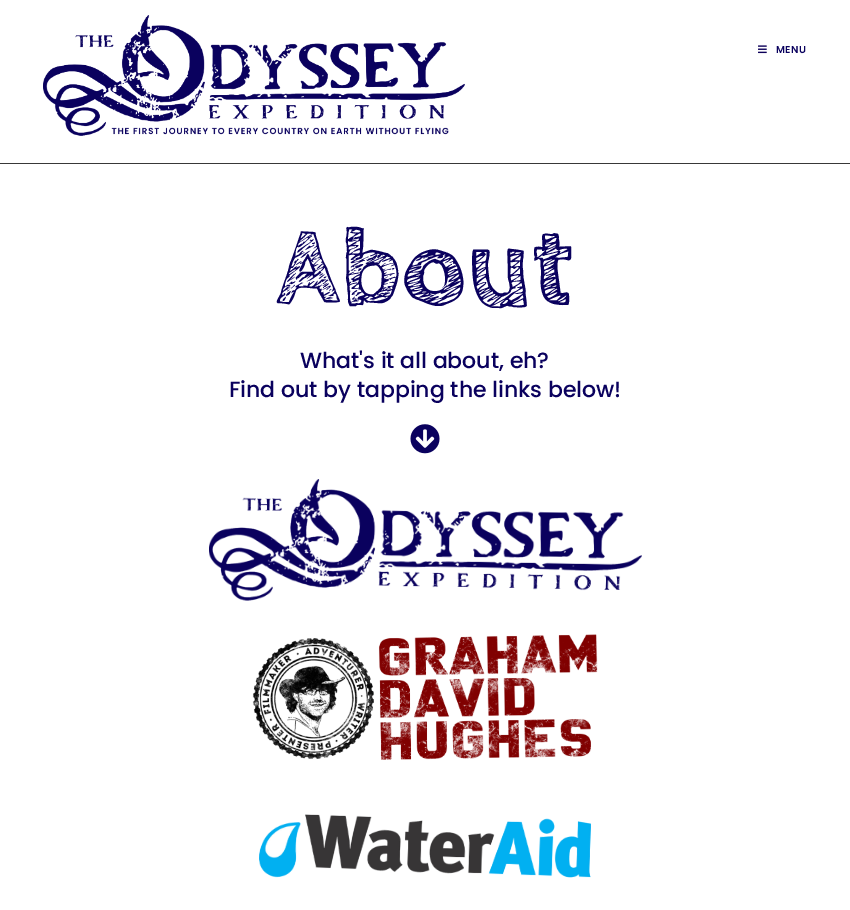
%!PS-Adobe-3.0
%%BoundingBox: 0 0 850 910
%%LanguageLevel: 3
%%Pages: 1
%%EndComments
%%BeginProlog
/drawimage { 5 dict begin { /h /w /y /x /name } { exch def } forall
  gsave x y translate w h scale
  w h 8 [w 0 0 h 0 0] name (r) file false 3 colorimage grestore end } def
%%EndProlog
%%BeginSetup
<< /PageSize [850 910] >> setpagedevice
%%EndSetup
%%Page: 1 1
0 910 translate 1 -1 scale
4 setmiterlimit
1 setgray
0 0 850 910 rectfill
0.22 setgray
0 163 850 1 rectfill
(images/1.raw) 43 15 422 121 drawimage
(images/2.raw) 758 45 9 9 drawimage
(images/3.raw) 410 424 30 30 drawimage
(images/4.raw) 209 479 433 122 drawimage
(images/5.raw) 252 634 346 126 drawimage
(images/6.raw) 259 814 332 64 drawimage
/Poppins-SemiBold [10 0 0 -10 0 0] selectfont
0.039 0.004 0.369 setrgbcolor
776 53 moveto 0.5 0 (MENU) ashow
/CabinSketch-Bold [113 0 0 -113 0 0] selectfont
276 303 moveto (About) show
/Poppins-Medium [22 0 0 -22 0 0] selectfont
300 368 moveto (What's it all about, eh?) show
229 397 moveto (Find out by tapping the links below!) show
showpage
%%EOF
